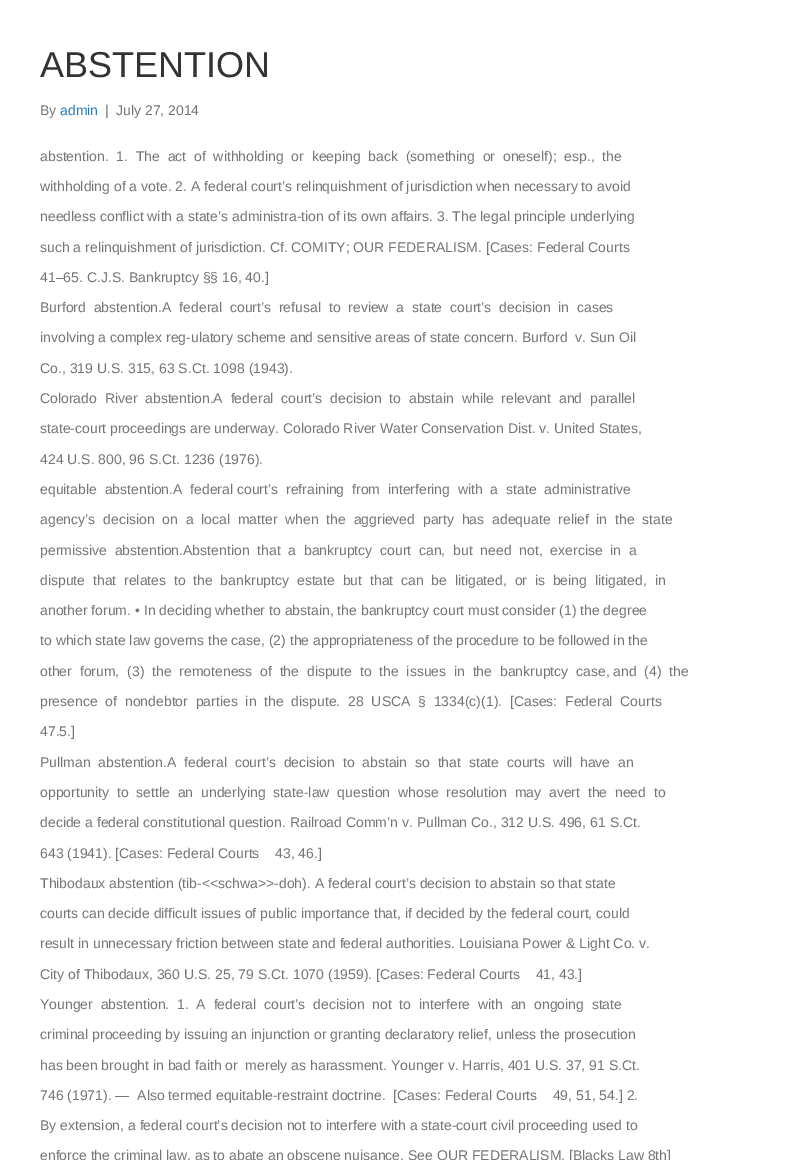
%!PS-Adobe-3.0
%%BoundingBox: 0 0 789 1160
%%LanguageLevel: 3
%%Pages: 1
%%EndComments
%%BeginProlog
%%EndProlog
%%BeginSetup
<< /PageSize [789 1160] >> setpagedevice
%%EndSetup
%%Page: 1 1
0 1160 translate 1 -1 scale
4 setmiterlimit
1 setgray
0 0 789 1160 rectfill
/LiberationSans-Regular [36 0 0 -36 0 0] selectfont
0.2 setgray
40 77 moveto (ABSTENTION) show
/LiberationSans-Regular [14 0 0 -14 0 0] selectfont
0.459 setgray
40 115 moveto (By) show
0.169 0.482 0.725 setrgbcolor
60 115 moveto (admin) show
0.459 setgray
105 115 moveto (|) show
116 115 moveto (July 27, 2014) show
40 161 moveto (abstention.  1.  The  act  of  withholding  or  keeping  back  \(something  or  oneself\);  esp.,  the) show
40 191 moveto (withholding of a vote. 2. A federal court’s relinquishment of jurisdiction when necessary to avoid) show
40 221 moveto (needless conflict with a state’s administra-tion of its own affairs. 3. The legal principle underlying) show
40 252 moveto (such a relinquishment of jurisdiction. Cf. COMITY; OUR FEDERALISM. [Cases: Federal Courts) show
40 282 moveto (41–65. C.J.S. Bankruptcy §§ 16, 40.]) show
40 312 moveto (Burford  abstention.A  federal  court’s  refusal  to  review  a  state  court’s  decision  in  cases) show
40 342 moveto (involving a complex reg-ulatory scheme and sensitive areas of state concern. Burford  v. Sun Oil) show
40 373 moveto (Co., 319 U.S. 315, 63 S.Ct. 1098 \(1943\).) show
40 403 moveto (Colorado  River  abstention.A  federal  court’s  decision  to  abstain  while  relevant  and  parallel) show
40 433 moveto (state-court proceedings are underway. Colorado River Water Conservation Dist. v. United States,) show
40 464 moveto (424 U.S. 800, 96 S.Ct. 1236 \(1976\).) show
40 494 moveto (equitable  abstention.A  federal court’s  refraining  from  interfering  with  a  state  administrative) show
40 524 moveto (agency’s  decision  on  a  local  matter  when  the  aggrieved  party  has  adequate  relief  in  the  state) show
40 555 moveto (permissive  abstention.Abstention  that  a  bankruptcy  court  can,  but  need  not,  exercise  in  a) show
40 585 moveto (dispute  that  relates  to  the  bankruptcy  estate  but  that  can  be  litigated,  or  is  being  litigated,  in) show
40 615 moveto (another forum. • In deciding whether to abstain, the bankruptcy court must consider \(1\) the degree) show
40 645 moveto (to which state law governs the case, \(2\) the appropriateness of the procedure to be followed in the) show
40 676 moveto (other  forum,  \(3\)  the  remoteness  of  the  dispute  to  the  issues  in  the  bankruptcy  case, and  \(4\)  the) show
40 706 moveto (presence  of  nondebtor  parties  in  the  dispute.  28  USCA  §  1334\(c\)\(1\).  [Cases:  Federal  Courts) show
40 736 moveto (47.5.]) show
40 767 moveto (Pullman  abstention.A  federal  court’s  decision  to  abstain  so  that  state  courts  will  have  an) show
40 797 moveto (opportunity  to  settle  an  underlying  state-law  question  whose  resolution  may  avert  the  need  to) show
40 827 moveto (decide a federal constitutional question. Railroad Comm’n v. Pullman Co., 312 U.S. 496, 61 S.Ct.) show
40 858 moveto (643 \(1941\). [Cases: Federal Courts    43, 46.]) show
40 888 moveto (Thibodaux abstention \(tib-<<schwa>>-doh\). A federal court’s decision to abstain so that state) show
40 918 moveto (courts can decide difficult issues of public importance that, if decided by the federal court, could) show
40 948 moveto (result in unnecessary friction between state and federal authorities. Louisiana Power & Light Co. v.) show
40 979 moveto (City of Thibodaux, 360 U.S. 25, 79 S.Ct. 1070 \(1959\). [Cases: Federal Courts    41, 43.]) show
40 1009 moveto (Younger  abstention.  1.  A  federal  court’s  decision  not  to  interfere  with  an  ongoing  state) show
40 1039 moveto (criminal proceeding by issuing an injunction or granting declaratory relief, unless the prosecution) show
40 1070 moveto (has been brought in bad faith or  merely as harassment. Younger v. Harris, 401 U.S. 37, 91 S.Ct.) show
40 1100 moveto (746 \(1971\). —  Also termed equitable-restraint doctrine.  [Cases: Federal Courts    49, 51, 54.] 2.) show
40 1130 moveto (By extension, a federal court’s decision not to interfere with a state-court civil proceeding used to) show
40 1160 moveto (enforce the criminal law, as to abate an obscene nuisance. See OUR FEDERALISM. [Blacks Law 8th]) show
showpage
%%EOF
